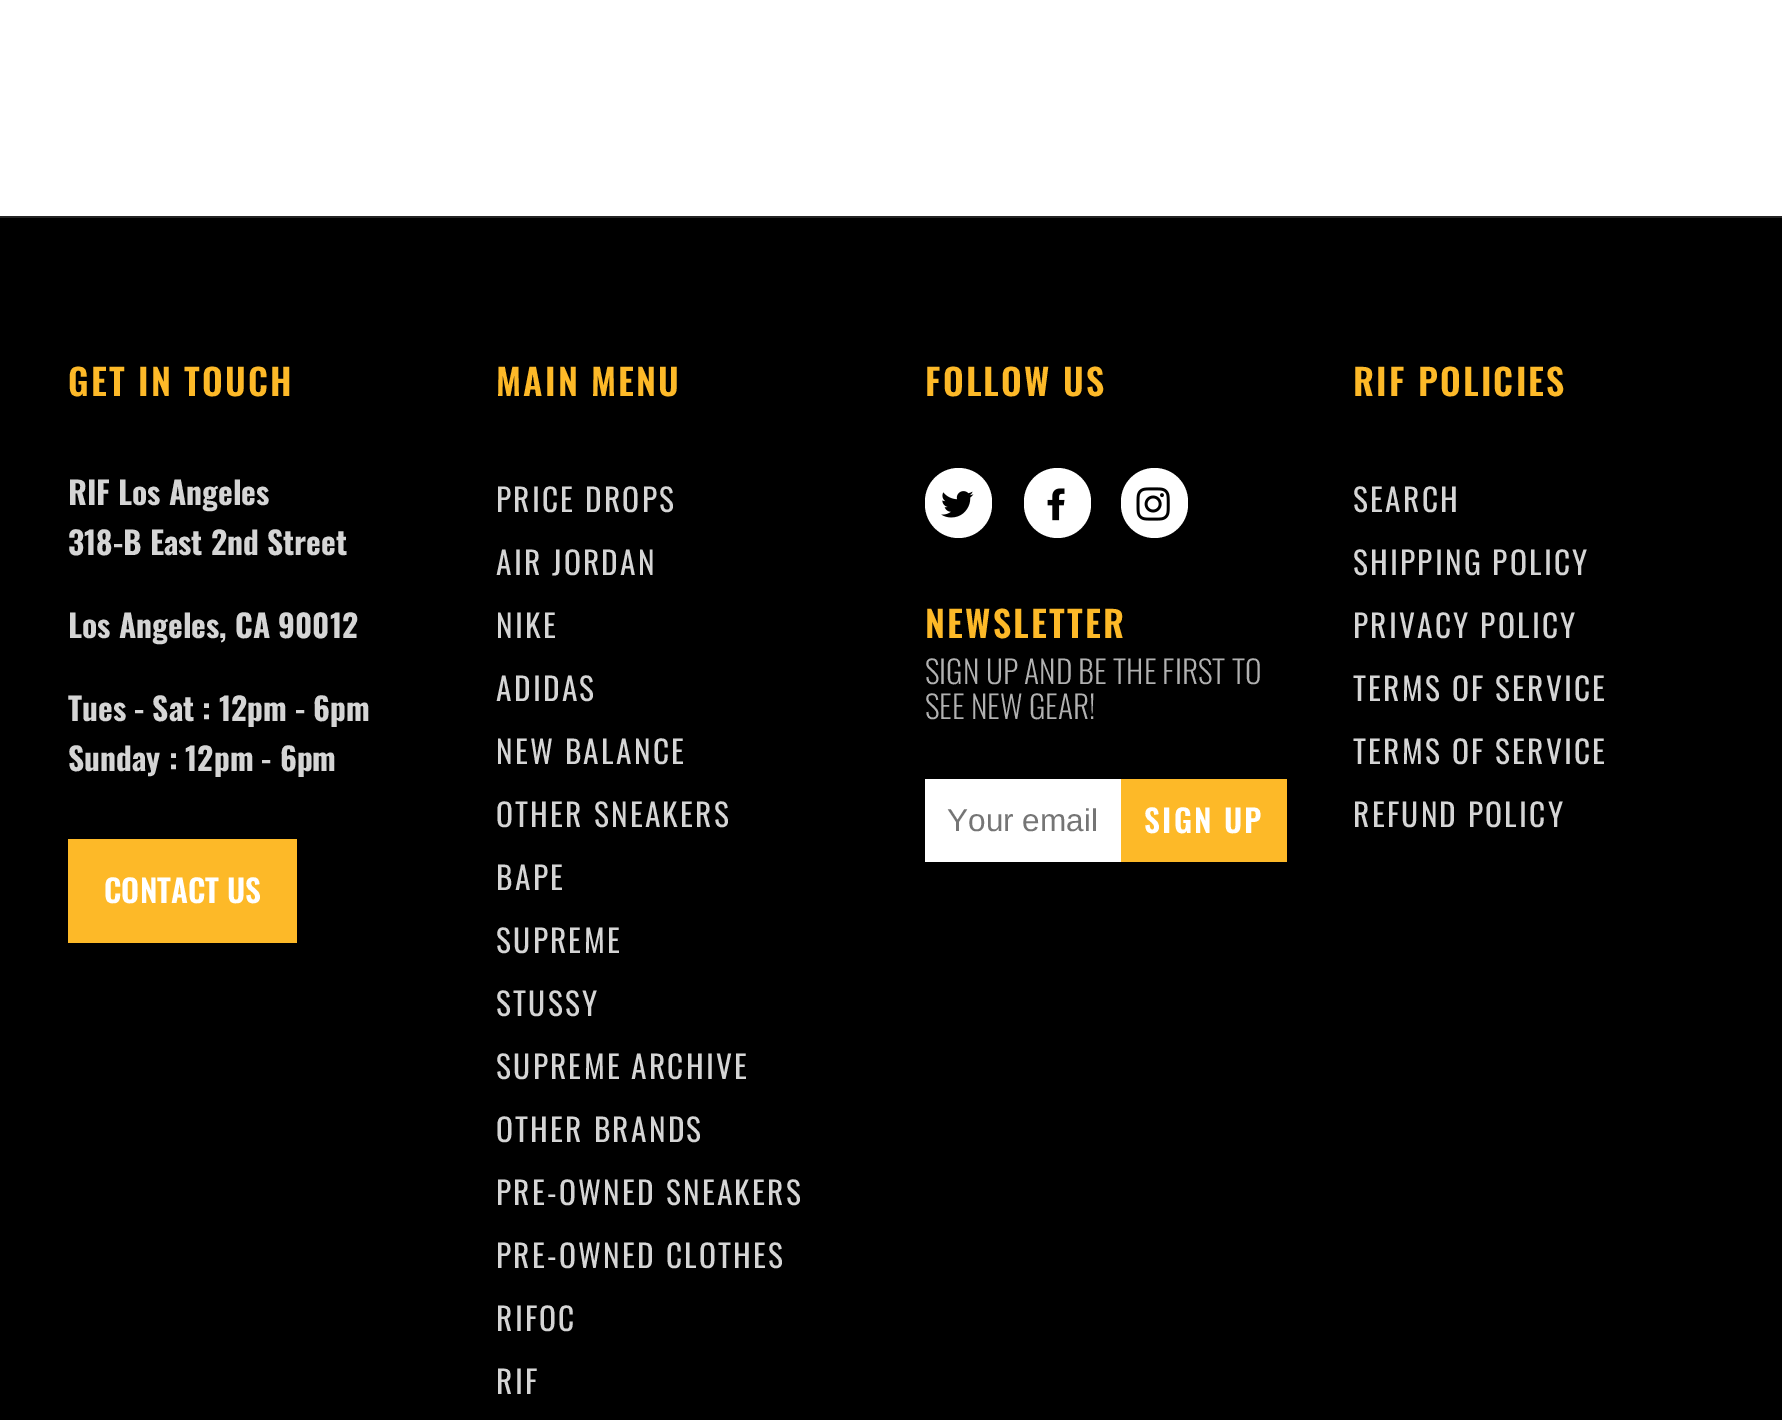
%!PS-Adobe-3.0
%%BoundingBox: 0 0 1782 1420
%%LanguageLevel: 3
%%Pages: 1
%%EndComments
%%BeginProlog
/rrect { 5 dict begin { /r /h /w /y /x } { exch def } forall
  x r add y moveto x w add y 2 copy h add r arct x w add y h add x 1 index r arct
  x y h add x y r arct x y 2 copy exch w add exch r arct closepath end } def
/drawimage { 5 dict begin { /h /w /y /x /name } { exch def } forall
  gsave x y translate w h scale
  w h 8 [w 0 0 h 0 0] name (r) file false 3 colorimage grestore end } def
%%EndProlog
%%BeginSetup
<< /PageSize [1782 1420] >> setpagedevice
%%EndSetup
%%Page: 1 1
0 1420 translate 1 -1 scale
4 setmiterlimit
1 setgray
0 0 1782 1420 rectfill
0 setgray
0 218 1782 1202 rectfill
0.141 setgray
0 216 1782 2 rectfill
0.992 0.725 0.157 setrgbcolor
68 839 229 104 rectfill
1 setgray
925 468 67 70 33.5 rrect fill
(images/1.raw) 941 491 33 27 drawimage
1024 468 67 70 33.5 rrect fill
(images/2.raw) 1047 488 18 33 drawimage
1121 468 67 70 33.5 rrect fill
(images/3.raw) 1136 487 34 34 drawimage
925 779 196 83 rectfill
0.992 0.725 0.157 setrgbcolor
1121 779 166 83 rectfill
/Oswald-SemiBold [36 0 0 -36 0 0] selectfont
68 396 moveto 2.25 0 (GET IN TOUCH) ashow
/Oswald-Bold [31.5 0 0 -31.5 0 0] selectfont
0.835 setgray
68 505 moveto (RIF Los Angeles) show
68 555 moveto (318-B East 2nd Street) show
68 638 moveto (Los Angeles, CA 90012) show
68 721 moveto (Tues - Sat : 12pm - 6pm) show
68 771 moveto (Sunday : 12pm - 6pm) show
/Oswald-SemiBold [31.5 0 0 -31.5 0 0] selectfont
1 setgray
104 903 moveto (CONTACT US) show
/Oswald-SemiBold [36 0 0 -36 0 0] selectfont
0.992 0.725 0.157 setrgbcolor
496 396 moveto 2.25 0 (MAIN MENU) ashow
/Oswald-Regular [31.5 0 0 -31.5 0 0] selectfont
0.835 setgray
496 512 moveto 2.25 0 (PRICE DROPS) ashow
496 575 moveto 2.25 0 (AIR JORDAN) ashow
496 638 moveto 2.25 0 (NIKE) ashow
496 701 moveto 2.25 0 (ADIDAS) ashow
496 764 moveto 2.25 0 (NEW BALANCE) ashow
496 827 moveto 2.25 0 (OTHER SNEAKERS) ashow
496 890 moveto 2.25 0 (BAPE) ashow
496 953 moveto 2.25 0 (SUPREME) ashow
496 1016 moveto 2.25 0 (STUSSY) ashow
496 1079 moveto 2.25 0 (SUPREME ARCHIVE) ashow
496 1142 moveto 2.25 0 (OTHER BRANDS) ashow
496 1205 moveto 2.25 0 (PRE-OWNED SNEAKERS) ashow
496 1268 moveto 2.25 0 (PRE-OWNED CLOTHES) ashow
496 1331 moveto 2.25 0 (RIFOC) ashow
496 1394 moveto 2.25 0 (RIF) ashow
/Oswald-SemiBold [36 0 0 -36 0 0] selectfont
0.992 0.725 0.157 setrgbcolor
925 396 moveto 2.25 0 (FOLLOW US) ashow
925 638 moveto 2.25 0 (NEWSLETTER) ashow
/Oswald-Light [31.5 0 0 -31.5 0 0] selectfont
0.694 setgray
925 684 moveto (SIGN UP AND BE THE FIRST TO) show
925 719 moveto (SEE NEW GEAR!) show
/LiberationSans-Regular [31.5 0 0 -31.5 0 0] selectfont
0.459 setgray
947 831 moveto (Your email) show
/Oswald-SemiBold [31.5 0 0 -31.5 0 0] selectfont
1 setgray
1144 833 moveto 2.25 0 (SIGN UP) ashow
/Oswald-SemiBold [36 0 0 -36 0 0] selectfont
0.992 0.725 0.157 setrgbcolor
1353 396 moveto 2.25 0 (RIF POLICIES) ashow
/Oswald-Regular [31.5 0 0 -31.5 0 0] selectfont
0.835 setgray
1353 512 moveto 2.25 0 (SEARCH) ashow
1353 575 moveto 2.25 0 (SHIPPING POLICY) ashow
1353 638 moveto 2.25 0 (PRIVACY POLICY) ashow
1353 701 moveto 2.25 0 (TERMS OF SERVICE) ashow
1353 764 moveto 2.25 0 (TERMS OF SERVICE) ashow
1353 827 moveto 2.25 0 (REFUND POLICY) ashow
showpage
%%EOF
